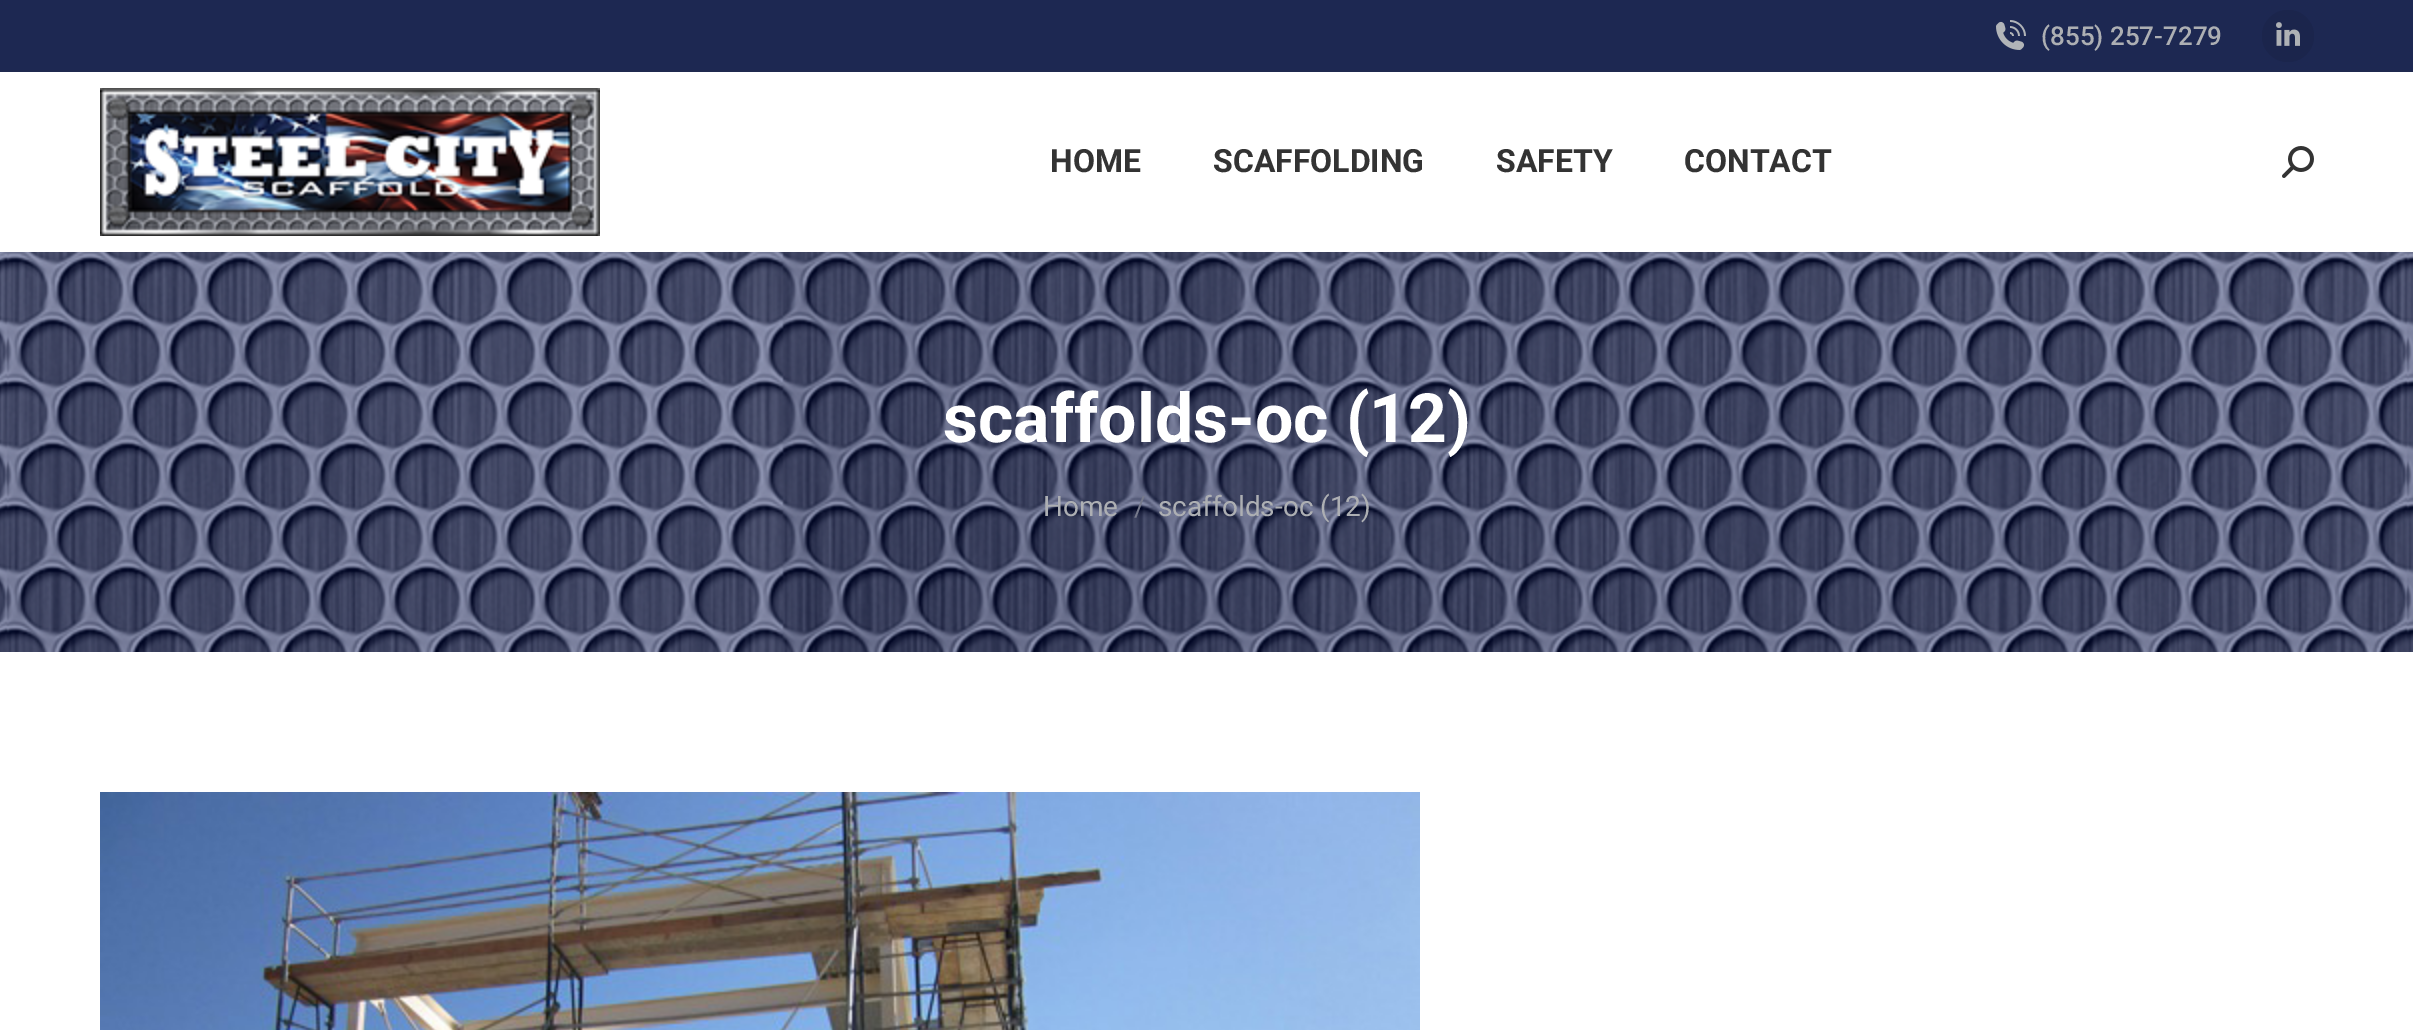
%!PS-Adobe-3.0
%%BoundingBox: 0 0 2413 1030
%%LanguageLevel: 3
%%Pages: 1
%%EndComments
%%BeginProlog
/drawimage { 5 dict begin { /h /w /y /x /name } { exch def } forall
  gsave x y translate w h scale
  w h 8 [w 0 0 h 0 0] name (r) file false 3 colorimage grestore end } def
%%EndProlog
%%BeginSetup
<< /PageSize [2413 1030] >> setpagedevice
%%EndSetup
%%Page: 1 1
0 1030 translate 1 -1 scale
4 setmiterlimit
1 setgray
0 0 2413 1030 rectfill
0.114 0.157 0.322 setrgbcolor
0 0 2413 70 rectfill
(images/1.raw) 1996 20 30 30 drawimage
0.106 0.145 0.298 setrgbcolor
newpath 2288 36 26 0 360 arc closepath fill
(images/2.raw) 2276 22 24 24 drawimage
0.122 0.161 0.31 setrgbcolor
0 70 2413 2 rectfill
(images/3.raw) 100 88 500 148 drawimage
(images/4.raw) 2282 146 32 32 drawimage
(images/5.raw) 0 252 2413 400 drawimage
(images/6.raw) 100 792 1320 238 drawimage
/Roboto-Medium [26 0 0 -26 0 0] selectfont
0.678 0.686 0.702 setrgbcolor
2041 45 moveto (\(855\) 257-7279) show
/Roboto-Bold [32 0 0 -32 0 0] selectfont
0.2 setgray
1050 172 moveto (HOME) show
1213 172 moveto (SCAFFOLDING) show
1496 172 moveto (SAFETY) show
1684 172 moveto (CONTACT) show
/Roboto-Bold [68 0 0 -68 0 0] selectfont
1 setgray
943 442 moveto (scaffolds-oc \(12\)) show
/Roboto-Regular [28 0 0 -28 0 0] selectfont
0.678 0.686 0.702 setrgbcolor
1043 516 moveto (Home) show
0.463 0.478 0.545 setrgbcolor
1134 516 moveto (/) show
0.678 0.686 0.702 setrgbcolor
1158 516 moveto (scaffolds-oc \(12\)) show
showpage
%%EOF
